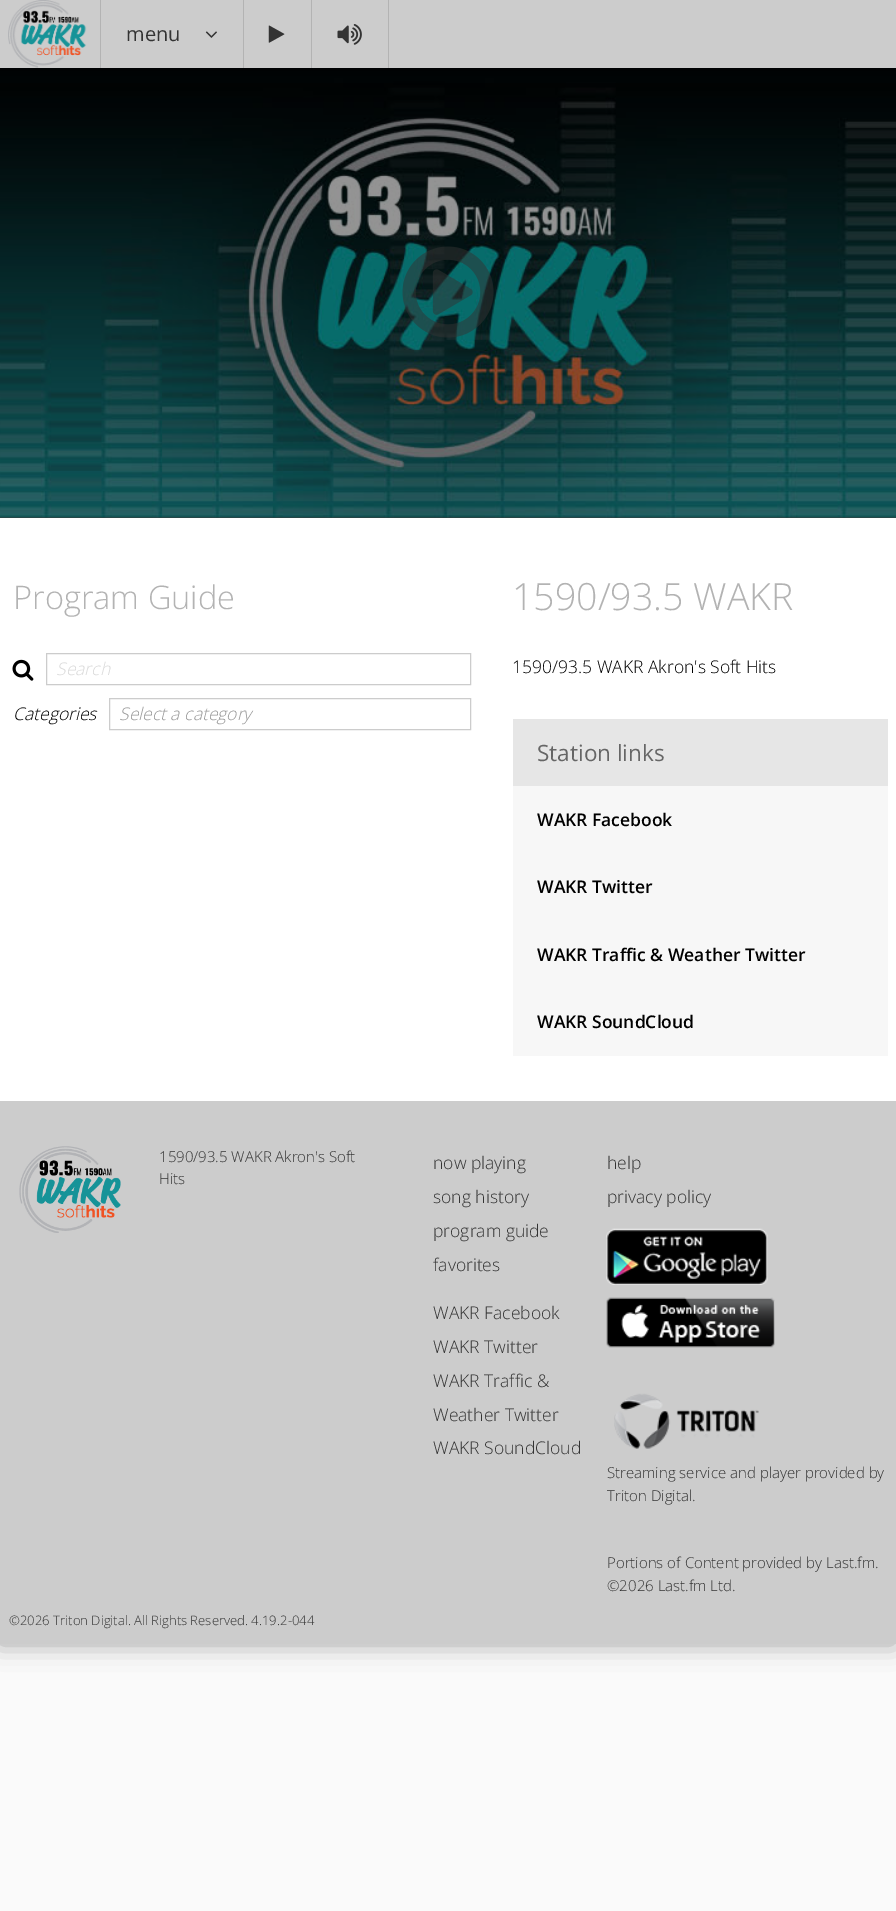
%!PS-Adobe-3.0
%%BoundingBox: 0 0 896 1911
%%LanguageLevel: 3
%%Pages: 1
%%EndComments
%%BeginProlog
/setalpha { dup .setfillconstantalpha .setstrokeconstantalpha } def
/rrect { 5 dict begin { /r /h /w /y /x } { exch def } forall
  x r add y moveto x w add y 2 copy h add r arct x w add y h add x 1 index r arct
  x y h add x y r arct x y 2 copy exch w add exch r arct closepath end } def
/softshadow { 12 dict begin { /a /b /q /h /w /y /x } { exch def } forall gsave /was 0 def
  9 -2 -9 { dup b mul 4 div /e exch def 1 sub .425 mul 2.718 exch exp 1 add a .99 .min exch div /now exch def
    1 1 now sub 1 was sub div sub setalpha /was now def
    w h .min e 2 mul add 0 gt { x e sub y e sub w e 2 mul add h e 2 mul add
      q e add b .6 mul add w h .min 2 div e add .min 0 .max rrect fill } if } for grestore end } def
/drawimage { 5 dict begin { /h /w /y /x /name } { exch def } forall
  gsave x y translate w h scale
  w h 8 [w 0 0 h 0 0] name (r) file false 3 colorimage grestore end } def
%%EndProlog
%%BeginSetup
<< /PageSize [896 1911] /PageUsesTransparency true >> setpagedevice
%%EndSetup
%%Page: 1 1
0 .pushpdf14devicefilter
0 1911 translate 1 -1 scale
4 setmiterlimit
0.98 setgray
0 0 896 1911 rectfill
0.122 setgray
-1 68 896 1576 0 12.5 0.4 softshadow
0.8 setgray
0 0 896 68 rectfill
0.702 setgray
100 0 1 68 rectfill
(images/1.raw) 8 0 79 68 drawimage
243 0 1 68 rectfill
(images/2.raw) 205 31 12 7 drawimage
311 0 1 68 rectfill
(images/3.raw) 268 25 17 18 drawimage
388 0 1 68 rectfill
(images/4.raw) 337 24 25 21 drawimage
0.4 setgray
0 517 896 1 rectfill
(images/5.raw) 0 68 896 450 drawimage
0.42 setalpha
0 setgray
0 83 896 435 rectfill
1 setalpha
(images/6.raw) 402 246 92 92 drawimage
1 setgray
0 518 896 583 rectfill
(images/7.raw) 12 659 22 22 drawimage
0.8 setgray
46.5 653.5 424 31 rectstroke
109.5 698.5 361 31 rectstroke
0.969 setgray
513 786 375 270 rectfill
0.902 setgray
513 719 375 67 rectfill
0.8 setgray
0 1101 896 543 rectfill
(images/8.raw) 19 1146 102 87 drawimage
(images/9.raw) 606 1228 162 57 drawimage
(images/10.raw) 606 1297 169 51 drawimage
(images/11.raw) 614 1393 145 56 drawimage
/OpenSans-Regular [20 0 0 -20 0 0] selectfont
0.2 setgray
126 41 moveto (menu) show
/OpenSans-Light [32.5 0 0 -32.5 0 0] selectfont
0.702 setgray
13 609 moveto (Program Guide) show
/OpenSans-LightItalic [17.5 0 0 -17.5 0 0] selectfont
0.851 setgray
56 675 moveto (Search) show
0 setgray
13 720 moveto (Categories) show
0.6 setgray
119 720 moveto (Select a category) show
/OpenSans-Light [37.5 0 0 -37.5 0 0] selectfont
0.702 setgray
512 610 moveto (1590/93.5 WAKR) show
/OpenSans-Light [17.5 0 0 -17.5 0 0] selectfont
0 setgray
512 673 moveto (1590/93.5 WAKR Akron's Soft Hits) show
/OpenSans-Regular [22.5 0 0 -22.5 0 0] selectfont
0.4 setgray
537 761 moveto (Station links) show
/OpenSans-SemiBold [17.5 0 0 -17.5 0 0] selectfont
0 setgray
537 826 moveto (WAKR Facebook) show
537 893 moveto (WAKR Twitter) show
537 961 moveto (WAKR Traffic & Weather Twitter) show
537 1028 moveto (WAKR SoundCloud) show
/OpenSans-Light [15 0 0 -15 0 0] selectfont
0.2 setgray
159 1162 moveto (1590/93.5 WAKR Akron's Soft) show
159 1184 moveto (Hits) show
/OpenSans-Light [17.5 0 0 -17.5 0 0] selectfont
433 1169 moveto (now playing) show
433 1203 moveto (song history) show
433 1237 moveto (program guide) show
433 1271 moveto (favorites) show
433 1319 moveto (WAKR Facebook) show
433 1353 moveto (WAKR Twitter) show
433 1387 moveto (WAKR Traffic &) show
433 1421 moveto (Weather Twitter) show
433 1454 moveto (WAKR SoundCloud) show
607 1169 moveto (help) show
607 1203 moveto (privacy policy) show
/OpenSans-Light [15 0 0 -15 0 0] selectfont
607 1478 moveto (Streaming service and player provided by) show
607 1501 moveto (Triton Digital.) show
607 1568 moveto (Portions of Content provided by Last.fm.) show
607 1591 moveto (©2026 Last.fm Ltd.) show
/OpenSans-Light [13.1 0 0 -13.1 0 0] selectfont
9 1625 moveto (©2026 Triton Digital. All Rights Reserved. 4.19.2-044) show
.poppdf14devicefilter showpage
%%EOF
